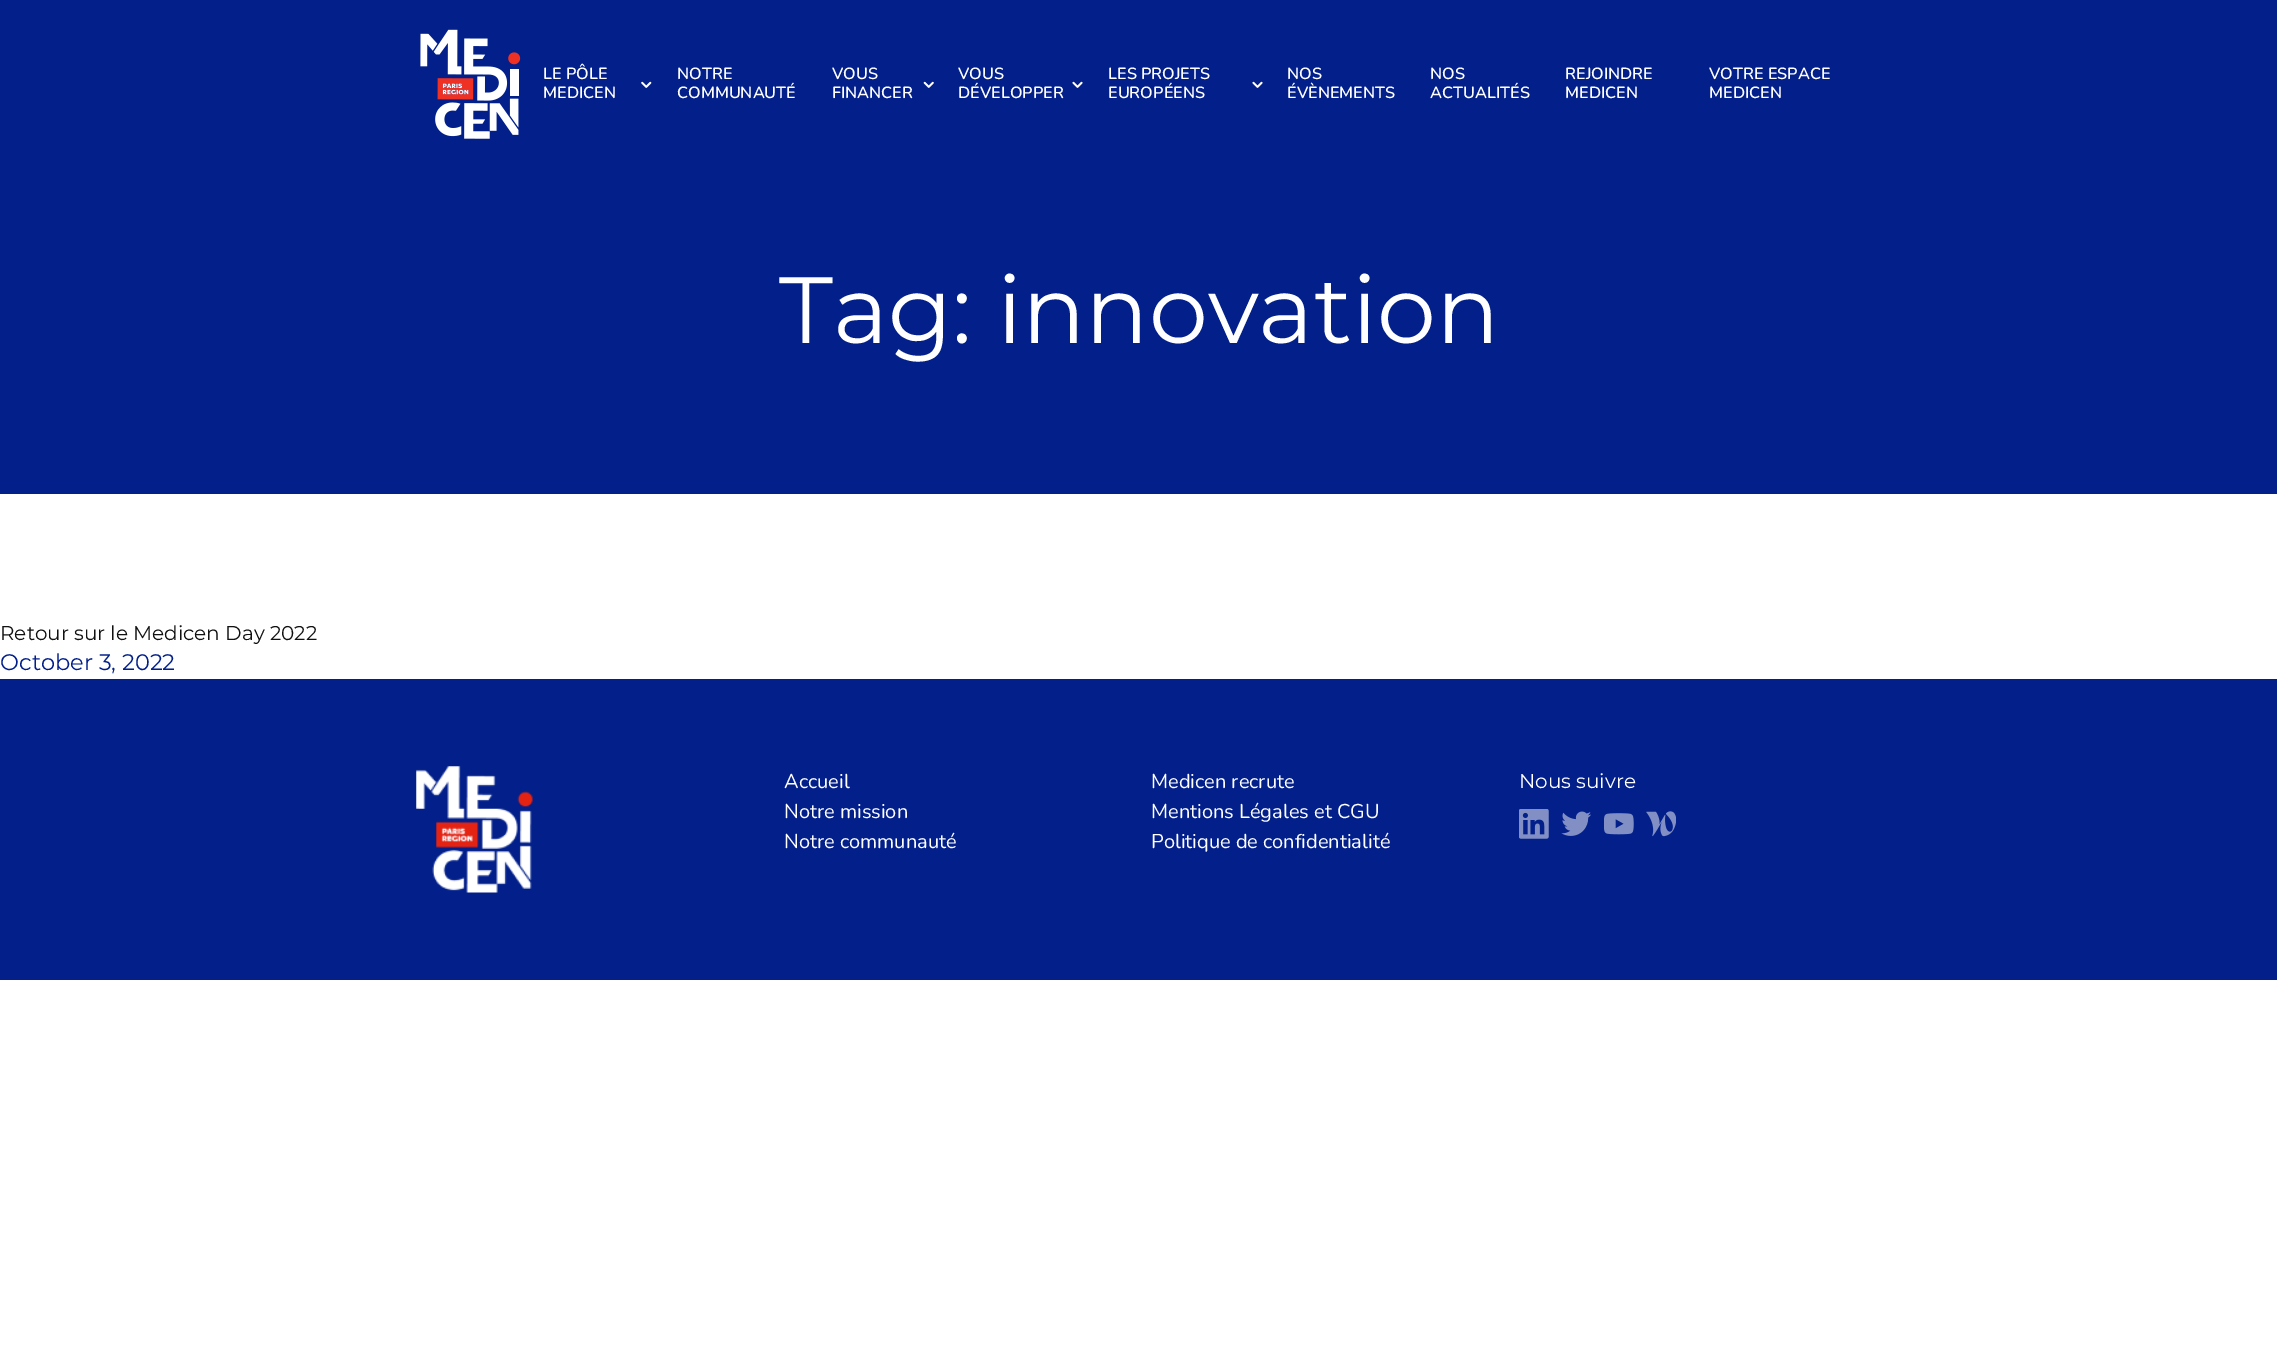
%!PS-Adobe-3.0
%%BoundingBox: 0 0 2277 1368
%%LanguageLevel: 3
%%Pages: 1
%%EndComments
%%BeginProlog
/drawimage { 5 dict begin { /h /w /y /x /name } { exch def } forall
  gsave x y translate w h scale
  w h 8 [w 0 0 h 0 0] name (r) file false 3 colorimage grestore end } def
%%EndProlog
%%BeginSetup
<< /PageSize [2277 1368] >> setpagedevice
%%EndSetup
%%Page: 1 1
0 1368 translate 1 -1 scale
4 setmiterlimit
1 setgray
0 0 2277 1368 rectfill
0.008 0.122 0.541 setrgbcolor
0 0 2277 494 rectfill
(images/1.raw) 420 29 101 110 drawimage
(images/2.raw) 641 81 11 7 drawimage
(images/3.raw) 923 81 11 7 drawimage
(images/4.raw) 1072 81 11 7 drawimage
(images/4.raw) 1252 81 11 7 drawimage
0 679 2277 301 rectfill
(images/5.raw) 416 766 117 127 drawimage
(images/6.raw) 1519 809 30 30 drawimage
(images/7.raw) 1561 811 30 25 drawimage
(images/8.raw) 1604 813 30 22 drawimage
(images/9.raw) 1646 811 30 26 drawimage
/Nunito-SemiBold [16.25 0 0 -16.25 0 0] selectfont
1 setgray
543 79 moveto (LE PÔLE) show
543 98 moveto (MEDICEN) show
677 79 moveto (NOTRE) show
677 98 moveto (COMMUNAUTÉ) show
832 79 moveto (VOUS) show
832 98 moveto (FINANCER) show
958 79 moveto (VOUS) show
958 98 moveto (DÉVELOPPER) show
1108 79 moveto (LES PROJETS) show
1108 98 moveto (EUROPÉENS) show
1287 79 moveto (NOS) show
1287 98 moveto (ÉVÈNEMENTS) show
1430 79 moveto (NOS) show
1430 98 moveto (ACTUALITÉS) show
1565 79 moveto (REJOINDRE) show
1565 98 moveto (MEDICEN) show
1709 79 moveto (VOTRE ESPACE) show
1709 98 moveto (MEDICEN) show
/Montserrat-Regular [93.75 0 0 -93.75 0 0] selectfont
779 343 moveto (Tag: innovation) show
/Montserrat-Regular [20 0 0 -20 0 0] selectfont
0.067 setgray
0 640 moveto (Retour sur le Medicen Day 2022) show
/Montserrat-Regular [22.5 0 0 -22.5 0 0] selectfont
0.008 0.122 0.541 setrgbcolor
0 670 moveto (October 3, 2022) show
/Nunito-Regular [20 0 0 -20 0 0] selectfont
1 setgray
784 788 moveto (Accueil) show
784 818 moveto (Notre mission) show
784 848 moveto (Notre communauté) show
1151 788 moveto (Medicen recrute) show
1151 818 moveto (Mentions Légales et CGU) show
1151 848 moveto (Politique de confidentialité) show
/Montserrat-Regular [20 0 0 -20 0 0] selectfont
1519 788 moveto (Nous suivre) show
showpage
%%EOF
